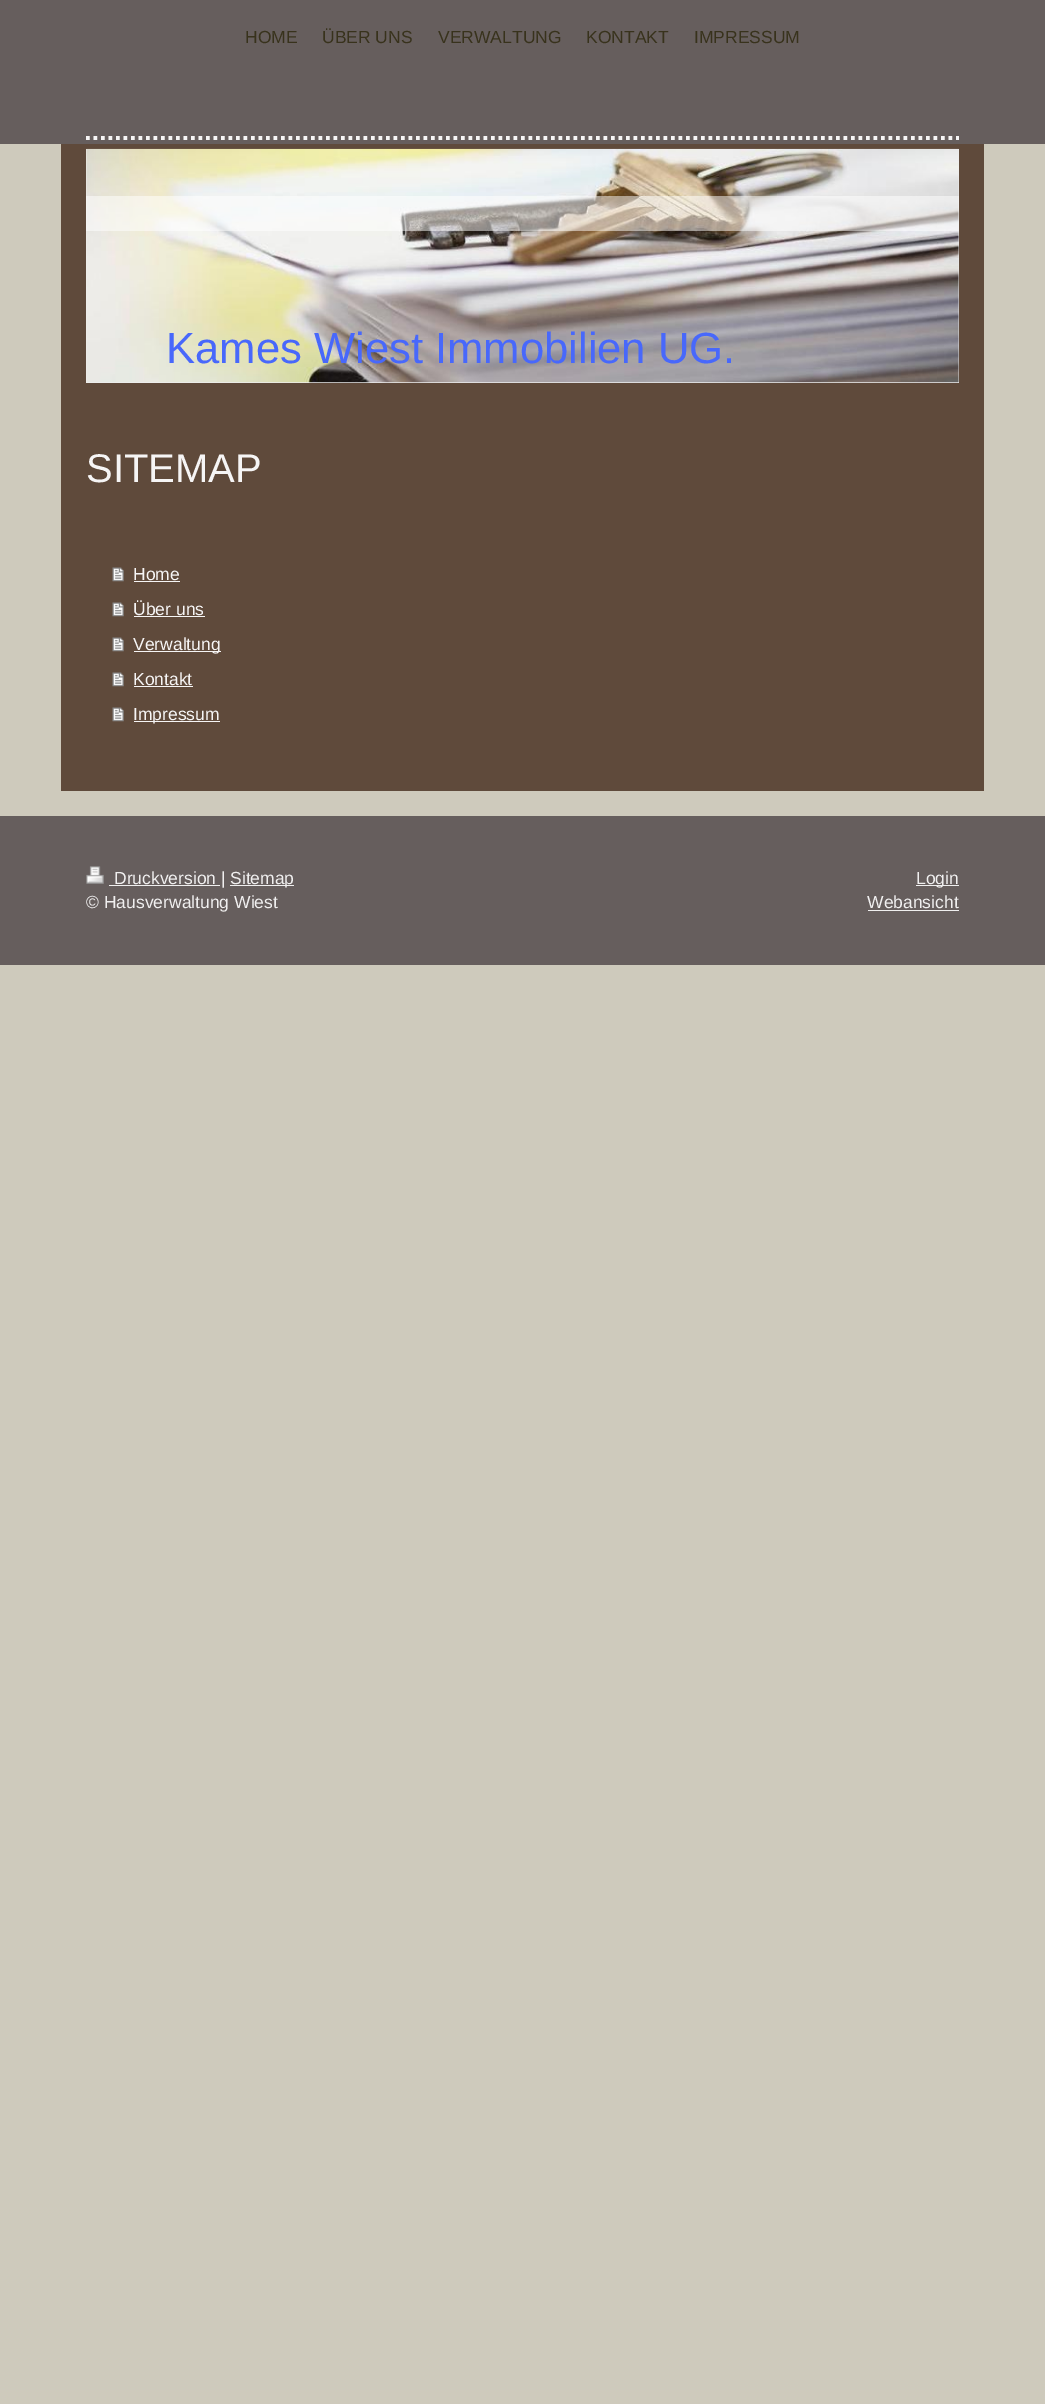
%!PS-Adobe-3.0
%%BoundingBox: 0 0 1045 2404
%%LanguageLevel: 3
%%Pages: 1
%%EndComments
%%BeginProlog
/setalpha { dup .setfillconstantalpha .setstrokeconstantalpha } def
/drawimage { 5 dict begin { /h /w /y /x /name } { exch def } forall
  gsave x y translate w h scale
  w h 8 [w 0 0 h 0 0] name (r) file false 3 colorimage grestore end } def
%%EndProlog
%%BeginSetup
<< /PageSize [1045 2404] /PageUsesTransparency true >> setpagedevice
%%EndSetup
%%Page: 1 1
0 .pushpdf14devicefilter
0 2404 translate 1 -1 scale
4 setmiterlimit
0.808 0.792 0.737 setrgbcolor
0 0 1045 2404 rectfill
0.4 0.369 0.365 setrgbcolor
0 0 1045 144 rectfill
0.373 0.29 0.231 setrgbcolor
61 144 923 647 rectfill
0.965 0.961 0.961 setrgbcolor
3.8 setlinewidth
[3.75 3.75] 0 setdash
newpath 86 138 moveto 959 138 lineto stroke
0.933 setgray
86 149 873 234 rectfill
(images/1.raw) 86 148 873 235 drawimage
0.5 setalpha
1 setgray
86 196 873 35 rectfill
1 setalpha
(images/2.raw) 112 567 12 15 drawimage
0.965 0.961 0.961 setrgbcolor
134 581 46 1 rectfill
(images/2.raw) 112 602 12 15 drawimage
134 616 71 1 rectfill
(images/2.raw) 112 637 12 15 drawimage
134 651 87 1 rectfill
(images/2.raw) 112 672 12 15 drawimage
134 686 59 1 rectfill
(images/2.raw) 112 707 12 15 drawimage
134 721 86 1 rectfill
0.4 0.369 0.365 setrgbcolor
0 816 1045 149 rectfill
(images/3.raw) 86 866 18 18 drawimage
0.941 0.937 0.937 setrgbcolor
109 885 111 1 rectfill
230 885 64 1 rectfill
916 885 43 1 rectfill
868 910 91 1 rectfill
/LiberationSans-Regular [17.5 0 0 -17.5 0 0] selectfont
0.22 0.196 0.11 setrgbcolor
245 43 moveto (HOME) show
322 43 moveto (ÜBER UNS) show
438 43 moveto (VERWALTUNG) show
586 43 moveto (KONTAKT) show
694 43 moveto (IMPRESSUM) show
/LiberationSans-Regular [43.6 0 0 -43.6 0 0] selectfont
0.282 0.408 0.984 setrgbcolor
166 363 moveto (Kames Wiest Immobilien UG.) show
/LiberationSans-Regular [40 0 0 -40 0 0] selectfont
0.965 0.961 0.961 setrgbcolor
86 482 moveto (SITEMAP) show
/LiberationSans-Regular [17.5 0 0 -17.5 0 0] selectfont
133 580 moveto (Home) show
133 615 moveto (Über uns) show
133 650 moveto (Verwaltung) show
133 685 moveto (Kontakt) show
133 720 moveto (Impressum) show
0.941 0.937 0.937 setrgbcolor
114 884 moveto (Druckversion |) show
230 884 moveto (Sitemap) show
86 908 moveto (© Hausverwaltung Wiest) show
916 884 moveto (Login) show
867 908 moveto (Webansicht) show
.poppdf14devicefilter showpage
%%EOF
